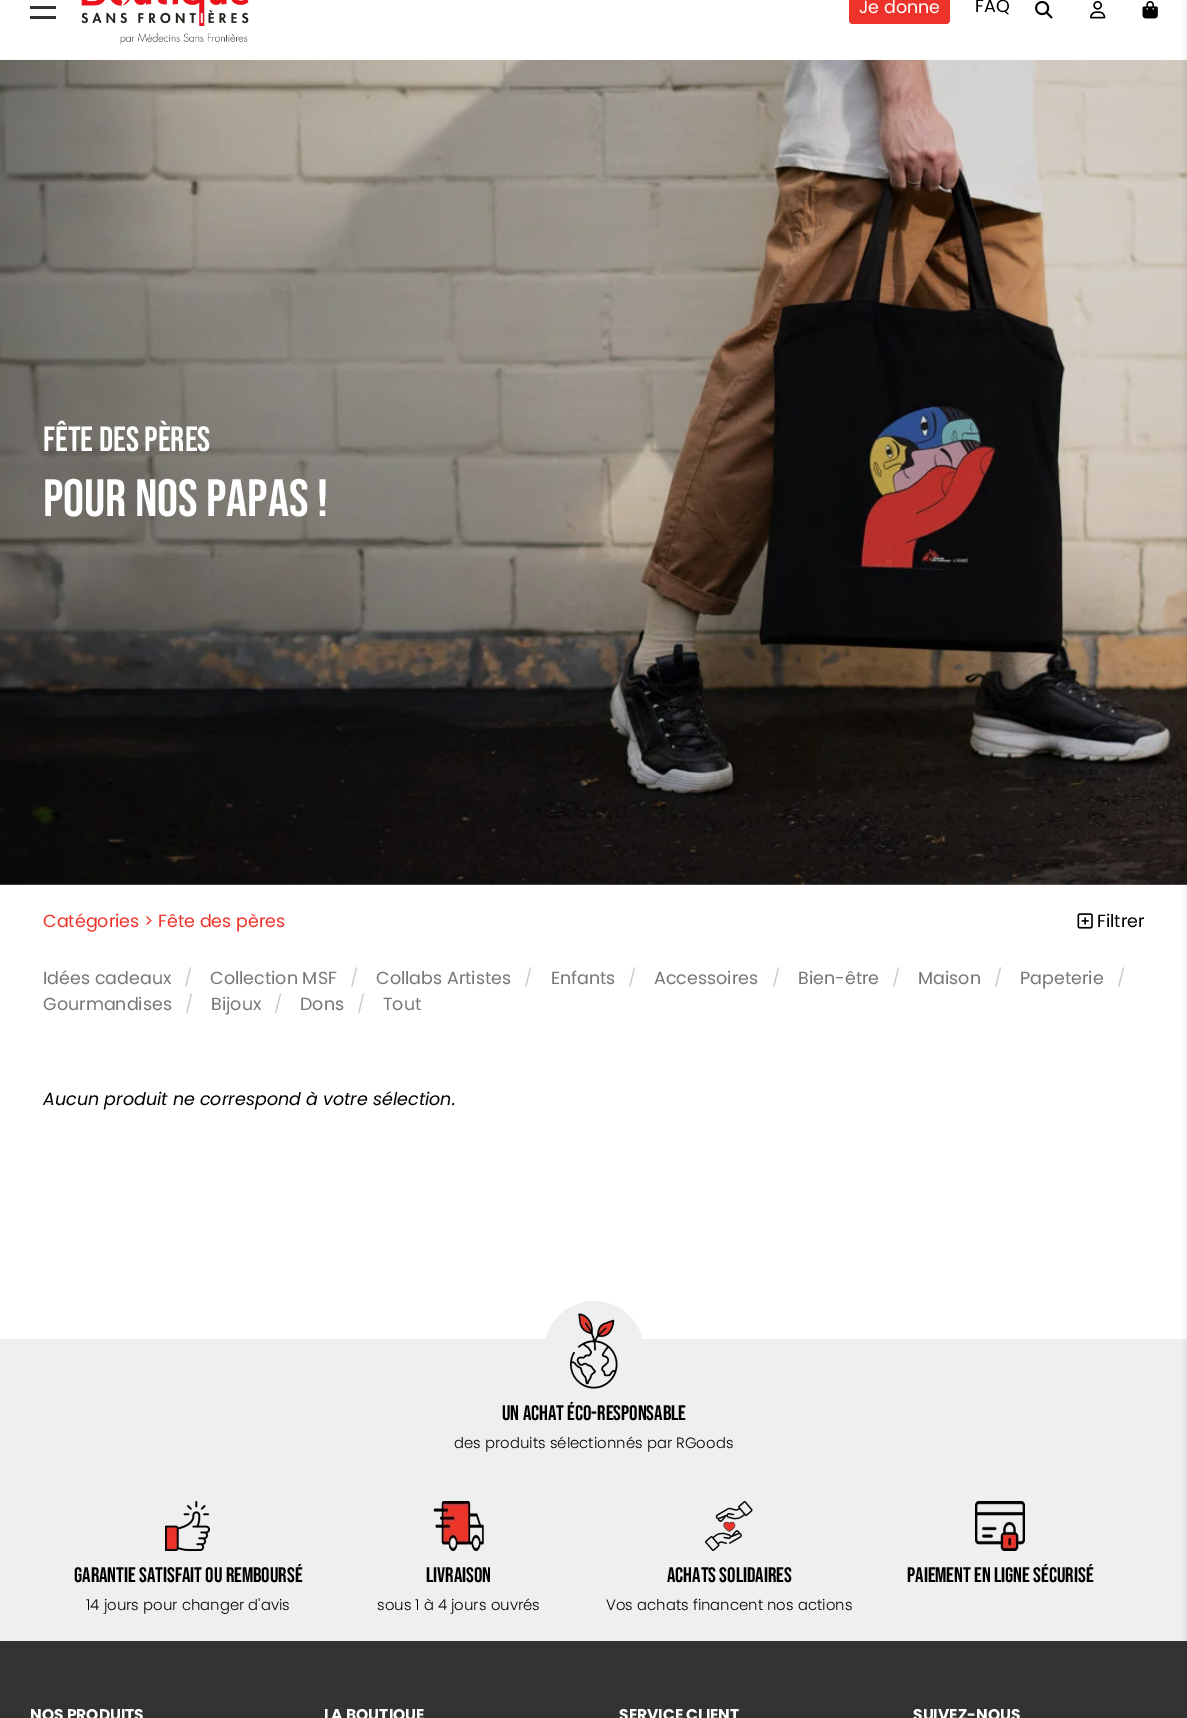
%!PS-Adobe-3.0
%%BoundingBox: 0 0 1187 1718
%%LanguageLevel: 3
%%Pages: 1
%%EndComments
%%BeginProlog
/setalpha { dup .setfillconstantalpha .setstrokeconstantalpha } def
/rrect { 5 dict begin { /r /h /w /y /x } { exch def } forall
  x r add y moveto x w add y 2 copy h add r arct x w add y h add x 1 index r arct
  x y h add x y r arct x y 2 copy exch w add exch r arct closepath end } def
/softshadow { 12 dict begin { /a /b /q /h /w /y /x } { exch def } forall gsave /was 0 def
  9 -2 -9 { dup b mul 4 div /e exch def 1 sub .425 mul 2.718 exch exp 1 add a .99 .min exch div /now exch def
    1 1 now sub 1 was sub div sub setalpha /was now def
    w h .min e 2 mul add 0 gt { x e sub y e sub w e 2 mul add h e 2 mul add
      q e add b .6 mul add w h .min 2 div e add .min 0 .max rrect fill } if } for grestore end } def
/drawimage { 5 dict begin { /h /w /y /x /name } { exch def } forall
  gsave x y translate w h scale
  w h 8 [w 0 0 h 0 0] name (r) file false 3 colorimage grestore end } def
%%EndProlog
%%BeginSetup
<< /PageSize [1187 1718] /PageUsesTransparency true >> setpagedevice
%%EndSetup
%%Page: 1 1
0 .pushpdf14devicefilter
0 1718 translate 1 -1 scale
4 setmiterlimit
1 setgray
0 0 1187 1718 rectfill
0.2 setgray
30 16 26 3 rectfill
30 6 26 3 rectfill
(images/1.raw) 81 0 168 45 drawimage
0.933 0.204 0.165 setrgbcolor
849 -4 101 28 4 rrect fill
(images/2.raw) 1035 0 18 19 drawimage
(images/3.raw) 1090 0 16 19 drawimage
(images/4.raw) 1142 1 16 18 drawimage
(images/5.raw) 0 59 1187 826 drawimage
0.937 setgray
0 1339 1187 302 rectfill
0.2 setgray
0 1641 1187 77 rectfill
0 setgray
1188 1 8 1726 0 3 0.2 softshadow
(images/6.raw) 1077 913 16 16 drawimage
0.937 setgray
newpath 594 1351 43.5 0 360 arc closepath gsave fill grestore
13 setlinewidth
stroke
(images/7.raw) 570 1313 48 76 drawimage
(images/8.raw) 165 1501 45 50 drawimage
(images/9.raw) 433 1501 51 50 drawimage
(images/10.raw) 705 1501 48 50 drawimage
(images/11.raw) 975 1501 50 50 drawimage
/Poppins-Regular [17.5 0 0 -17.5 0 0] selectfont
1 setgray
859 13 moveto (Je donne) show
0 setgray
975 12 moveto (FAQ) show
/BebasNeue-Regular [35 0 0 -35 0 0] selectfont
1 setgray
43 451 moveto (Fête des pères) show
/BebasNeue-Regular [52.5 0 0 -52.5 0 0] selectfont
43 516 moveto (Pour nos papas !) show
/Poppins-Regular [17.5 0 0 -17.5 0 0] selectfont
0.933 0.204 0.165 setrgbcolor
43 927 moveto (Catégories > Fête des pères) show
0 setgray
1097 927 moveto (Filtrer) show
0.467 setgray
43 984 moveto (Idées cadeaux) show
0.8 setgray
184 984 moveto (/) show
0.467 setgray
210 984 moveto (Collection MSF) show
0.8 setgray
350 984 moveto (/) show
0.467 setgray
376 984 moveto (Collabs Artistes) show
0.8 setgray
524 984 moveto (/) show
0.467 setgray
551 984 moveto (Enfants) show
0.8 setgray
628 984 moveto (/) show
0.467 setgray
654 984 moveto (Accessoires) show
0.8 setgray
772 984 moveto (/) show
0.467 setgray
798 984 moveto (Bien-être) show
0.8 setgray
892 984 moveto (/) show
0.467 setgray
918 984 moveto (Maison) show
0.8 setgray
994 984 moveto (/) show
0.467 setgray
1020 984 moveto (Papeterie) show
0.8 setgray
1117 984 moveto (/) show
0.467 setgray
43 1010 moveto (Gourmandises) show
0.8 setgray
185 1010 moveto (/) show
0.467 setgray
211 1010 moveto (Bijoux) show
0.8 setgray
274 1010 moveto (/) show
0.467 setgray
300 1010 moveto (Dons) show
0.8 setgray
357 1010 moveto (/) show
0.467 setgray
383 1010 moveto (Tout) show
/Poppins-Italic [17.5 0 0 -17.5 0 0] selectfont
0 setgray
43 1105 moveto (Aucun produit ne correspond à votre sélection.) show
/BebasNeue-Regular [21 0 0 -21 0 0] selectfont
502 1420 moveto (Un achat éco-responsable) show
/Poppins-Light [14.9 0 0 -14.9 0 0] selectfont
454 1448 moveto (des produits sélectionnés par RGoods) show
/BebasNeue-Regular [21 0 0 -21 0 0] selectfont
74 1582 moveto (Garantie satisfait ou remboursé) show
/Poppins-Light [14.9 0 0 -14.9 0 0] selectfont
86 1610 moveto (14 jours pour changer d'avis) show
/BebasNeue-Regular [21 0 0 -21 0 0] selectfont
426 1582 moveto (Livraison) show
/Poppins-Light [14.9 0 0 -14.9 0 0] selectfont
377 1610 moveto (sous 1 à 4 jours ouvrés) show
/BebasNeue-Regular [21 0 0 -21 0 0] selectfont
667 1582 moveto (Achats solidaires) show
/Poppins-Light [14.9 0 0 -14.9 0 0] selectfont
606 1610 moveto (Vos achats financent nos actions) show
/BebasNeue-Regular [21 0 0 -21 0 0] selectfont
907 1582 moveto (Paiement en ligne sécurisé) show
/Poppins-Bold [15.5 0 0 -15.5 0 0] selectfont
1 setgray
30 1720 moveto (NOS PRODUITS) show
324 1720 moveto (LA BOUTIQUE) show
619 1720 moveto (SERVICE CLIENT) show
913 1720 moveto (SUIVEZ-NOUS) show
.poppdf14devicefilter showpage
%%EOF
